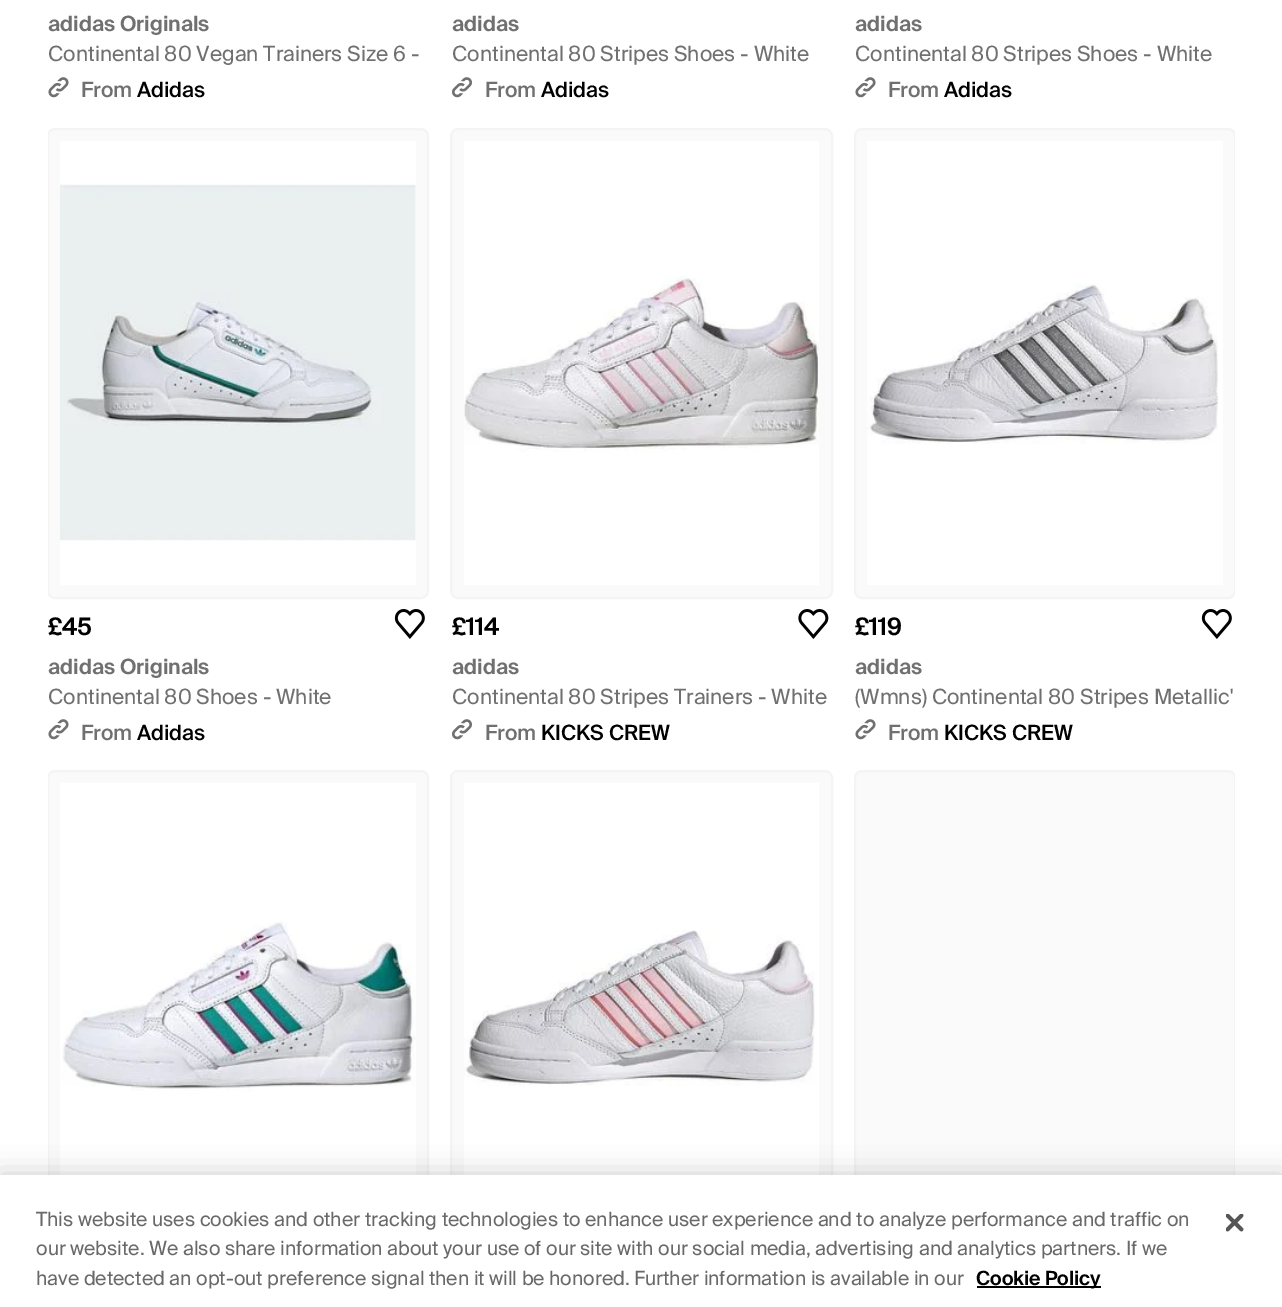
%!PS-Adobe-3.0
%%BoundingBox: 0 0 1282 1307
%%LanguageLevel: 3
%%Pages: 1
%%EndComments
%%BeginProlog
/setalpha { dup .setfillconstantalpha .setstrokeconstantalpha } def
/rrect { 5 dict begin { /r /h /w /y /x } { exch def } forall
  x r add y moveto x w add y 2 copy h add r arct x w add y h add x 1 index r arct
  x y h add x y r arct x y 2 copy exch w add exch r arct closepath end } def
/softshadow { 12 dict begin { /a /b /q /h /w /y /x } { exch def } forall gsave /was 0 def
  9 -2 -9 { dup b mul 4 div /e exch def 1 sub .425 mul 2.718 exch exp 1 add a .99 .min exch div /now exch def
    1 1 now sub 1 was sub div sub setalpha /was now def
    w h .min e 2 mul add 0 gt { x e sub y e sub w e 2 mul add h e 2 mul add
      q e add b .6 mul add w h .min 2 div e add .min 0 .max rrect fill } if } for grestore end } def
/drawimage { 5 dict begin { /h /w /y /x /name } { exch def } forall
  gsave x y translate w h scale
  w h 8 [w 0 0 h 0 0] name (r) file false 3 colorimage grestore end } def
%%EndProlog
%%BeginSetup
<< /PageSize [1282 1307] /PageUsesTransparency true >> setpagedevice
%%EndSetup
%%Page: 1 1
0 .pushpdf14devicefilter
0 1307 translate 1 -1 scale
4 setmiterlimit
1 setgray
0 0 1282 1307 rectfill
(images/1.raw) 48 77 21 21 drawimage
(images/2.raw) 452 77 20 21 drawimage
(images/1.raw) 855 77 21 21 drawimage
0.984 0.98 0.98 setrgbcolor
48 129 380 468 6 rrect fill
1 setgray
60 141 356 444 rectfill
(images/3.raw) 60 184 356 357 drawimage
gsave
48 0 1187 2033 rectclip
0.961 0.957 0.949 setrgbcolor
2 setlinewidth
48 129 380 469 7 rrect stroke
grestore
(images/4.raw) 394 609 31 30 drawimage
(images/1.raw) 48 719 21 21 drawimage
0.984 0.98 0.98 setrgbcolor
452 129 379 468 6 rrect fill
1 setgray
464 141 355 444 rectfill
(images/5.raw) 464 276 355 176 drawimage
0.961 0.957 0.949 setrgbcolor
2 setlinewidth
451 129 381 469 7 rrect stroke
(images/6.raw) 798 609 31 30 drawimage
(images/2.raw) 452 719 20 21 drawimage
0.984 0.98 0.98 setrgbcolor
855 129 380 468 6 rrect fill
1 setgray
867 141 356 444 rectfill
(images/7.raw) 867 283 351 161 drawimage
gsave
48 0 1187 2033 rectclip
0.961 0.957 0.949 setrgbcolor
855 129 380 469 7 rrect stroke
grestore
(images/4.raw) 1201 609 31 30 drawimage
(images/1.raw) 855 719 21 21 drawimage
0.984 0.98 0.98 setrgbcolor
48 771 380 468 6 rrect fill
1 setgray
60 783 356 392 rectfill
(images/8.raw) 61 921 355 170 drawimage
gsave
48 0 1187 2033 rectclip
0.961 0.957 0.949 setrgbcolor
48 771 380 469 7 rrect stroke
grestore
0.984 0.98 0.98 setrgbcolor
452 771 379 468 6 rrect fill
1 setgray
464 783 355 392 rectfill
(images/9.raw) 464 930 351 156 drawimage
0.961 0.957 0.949 setrgbcolor
451 771 381 469 7 rrect stroke
0.984 0.98 0.98 setrgbcolor
855 771 380 468 6 rrect fill
gsave
48 0 1187 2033 rectclip
0.961 0.957 0.949 setrgbcolor
855 771 380 469 7 rrect stroke
grestore
0 setgray
0 1175 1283 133 0 13.5 0.2 softshadow
1 setgray
0 1175 1282 132 rectfill
0 setgray
977 1286 124 2 rectfill
(images/10.raw) 1226 1214 18 18 drawimage
/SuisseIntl-SemiBold [21 0 0 -21 0 0] selectfont
0.439 setgray
48 31 moveto (adidas Originals) show
/SuisseIntl-Regular [21 0 0 -21 0 0] selectfont
48 61 moveto (Continental 80 Vegan Trainers Size 6 -) show
/SuisseIntl-Medium [21 0 0 -21 0 0] selectfont
81 97 moveto (From) show
0 setgray
137 97 moveto (Adidas) show
/SuisseIntl-SemiBold [21 0 0 -21 0 0] selectfont
0.439 setgray
452 31 moveto (adidas) show
/SuisseIntl-Regular [21 0 0 -21 0 0] selectfont
452 61 moveto (Continental 80 Stripes Shoes - White) show
/SuisseIntl-Medium [21 0 0 -21 0 0] selectfont
485 97 moveto (From) show
0 setgray
541 97 moveto (Adidas) show
/SuisseIntl-SemiBold [21 0 0 -21 0 0] selectfont
0.439 setgray
855 31 moveto (adidas) show
/SuisseIntl-Regular [21 0 0 -21 0 0] selectfont
855 61 moveto (Continental 80 Stripes Shoes - White) show
/SuisseIntl-Medium [21 0 0 -21 0 0] selectfont
888 97 moveto (From) show
0 setgray
944 97 moveto (Adidas) show
/SuisseIntl-SemiBold [24 0 0 -24 0 0] selectfont
48 635 moveto (£45) show
/SuisseIntl-SemiBold [21 0 0 -21 0 0] selectfont
0.439 setgray
48 674 moveto (adidas Originals) show
/SuisseIntl-Regular [21 0 0 -21 0 0] selectfont
48 704 moveto (Continental 80 Shoes - White) show
/SuisseIntl-Medium [21 0 0 -21 0 0] selectfont
81 740 moveto (From) show
0 setgray
137 740 moveto (Adidas) show
/SuisseIntl-SemiBold [24 0 0 -24 0 0] selectfont
452 635 moveto (£114) show
/SuisseIntl-SemiBold [21 0 0 -21 0 0] selectfont
0.439 setgray
452 674 moveto (adidas) show
/SuisseIntl-Regular [21 0 0 -21 0 0] selectfont
452 704 moveto (Continental 80 Stripes Trainers - White) show
/SuisseIntl-Medium [21 0 0 -21 0 0] selectfont
485 740 moveto (From) show
0 setgray
541 740 moveto (KICKS CREW) show
/SuisseIntl-SemiBold [24 0 0 -24 0 0] selectfont
855 635 moveto (£119) show
/SuisseIntl-SemiBold [21 0 0 -21 0 0] selectfont
0.439 setgray
855 674 moveto (adidas) show
/SuisseIntl-Regular [21 0 0 -21 0 0] selectfont
855 704 moveto (\(Wmns\) Continental 80 Stripes Metallic') show
/SuisseIntl-Medium [21 0 0 -21 0 0] selectfont
888 740 moveto (From) show
0 setgray
944 740 moveto (KICKS CREW) show
/SuisseIntl-Regular [19.5 0 0 -19.5 0 0] selectfont
0.412 setgray
36 1226 moveto (This website uses cookies and other tracking technologies to enhance user experience and to analyze performance and traffic on) show
36 1255 moveto (our website. We also share information about your use of our site with our social media, advertising and analytics partners. If we) show
36 1285 moveto (have detected an opt-out preference signal then it will be honored. Further information is available in our) show
/SuisseIntl-SemiBold [19.5 0 0 -19.5 0 0] selectfont
0 setgray
976 1285 moveto (Cookie Policy) show
.poppdf14devicefilter showpage
%%EOF
